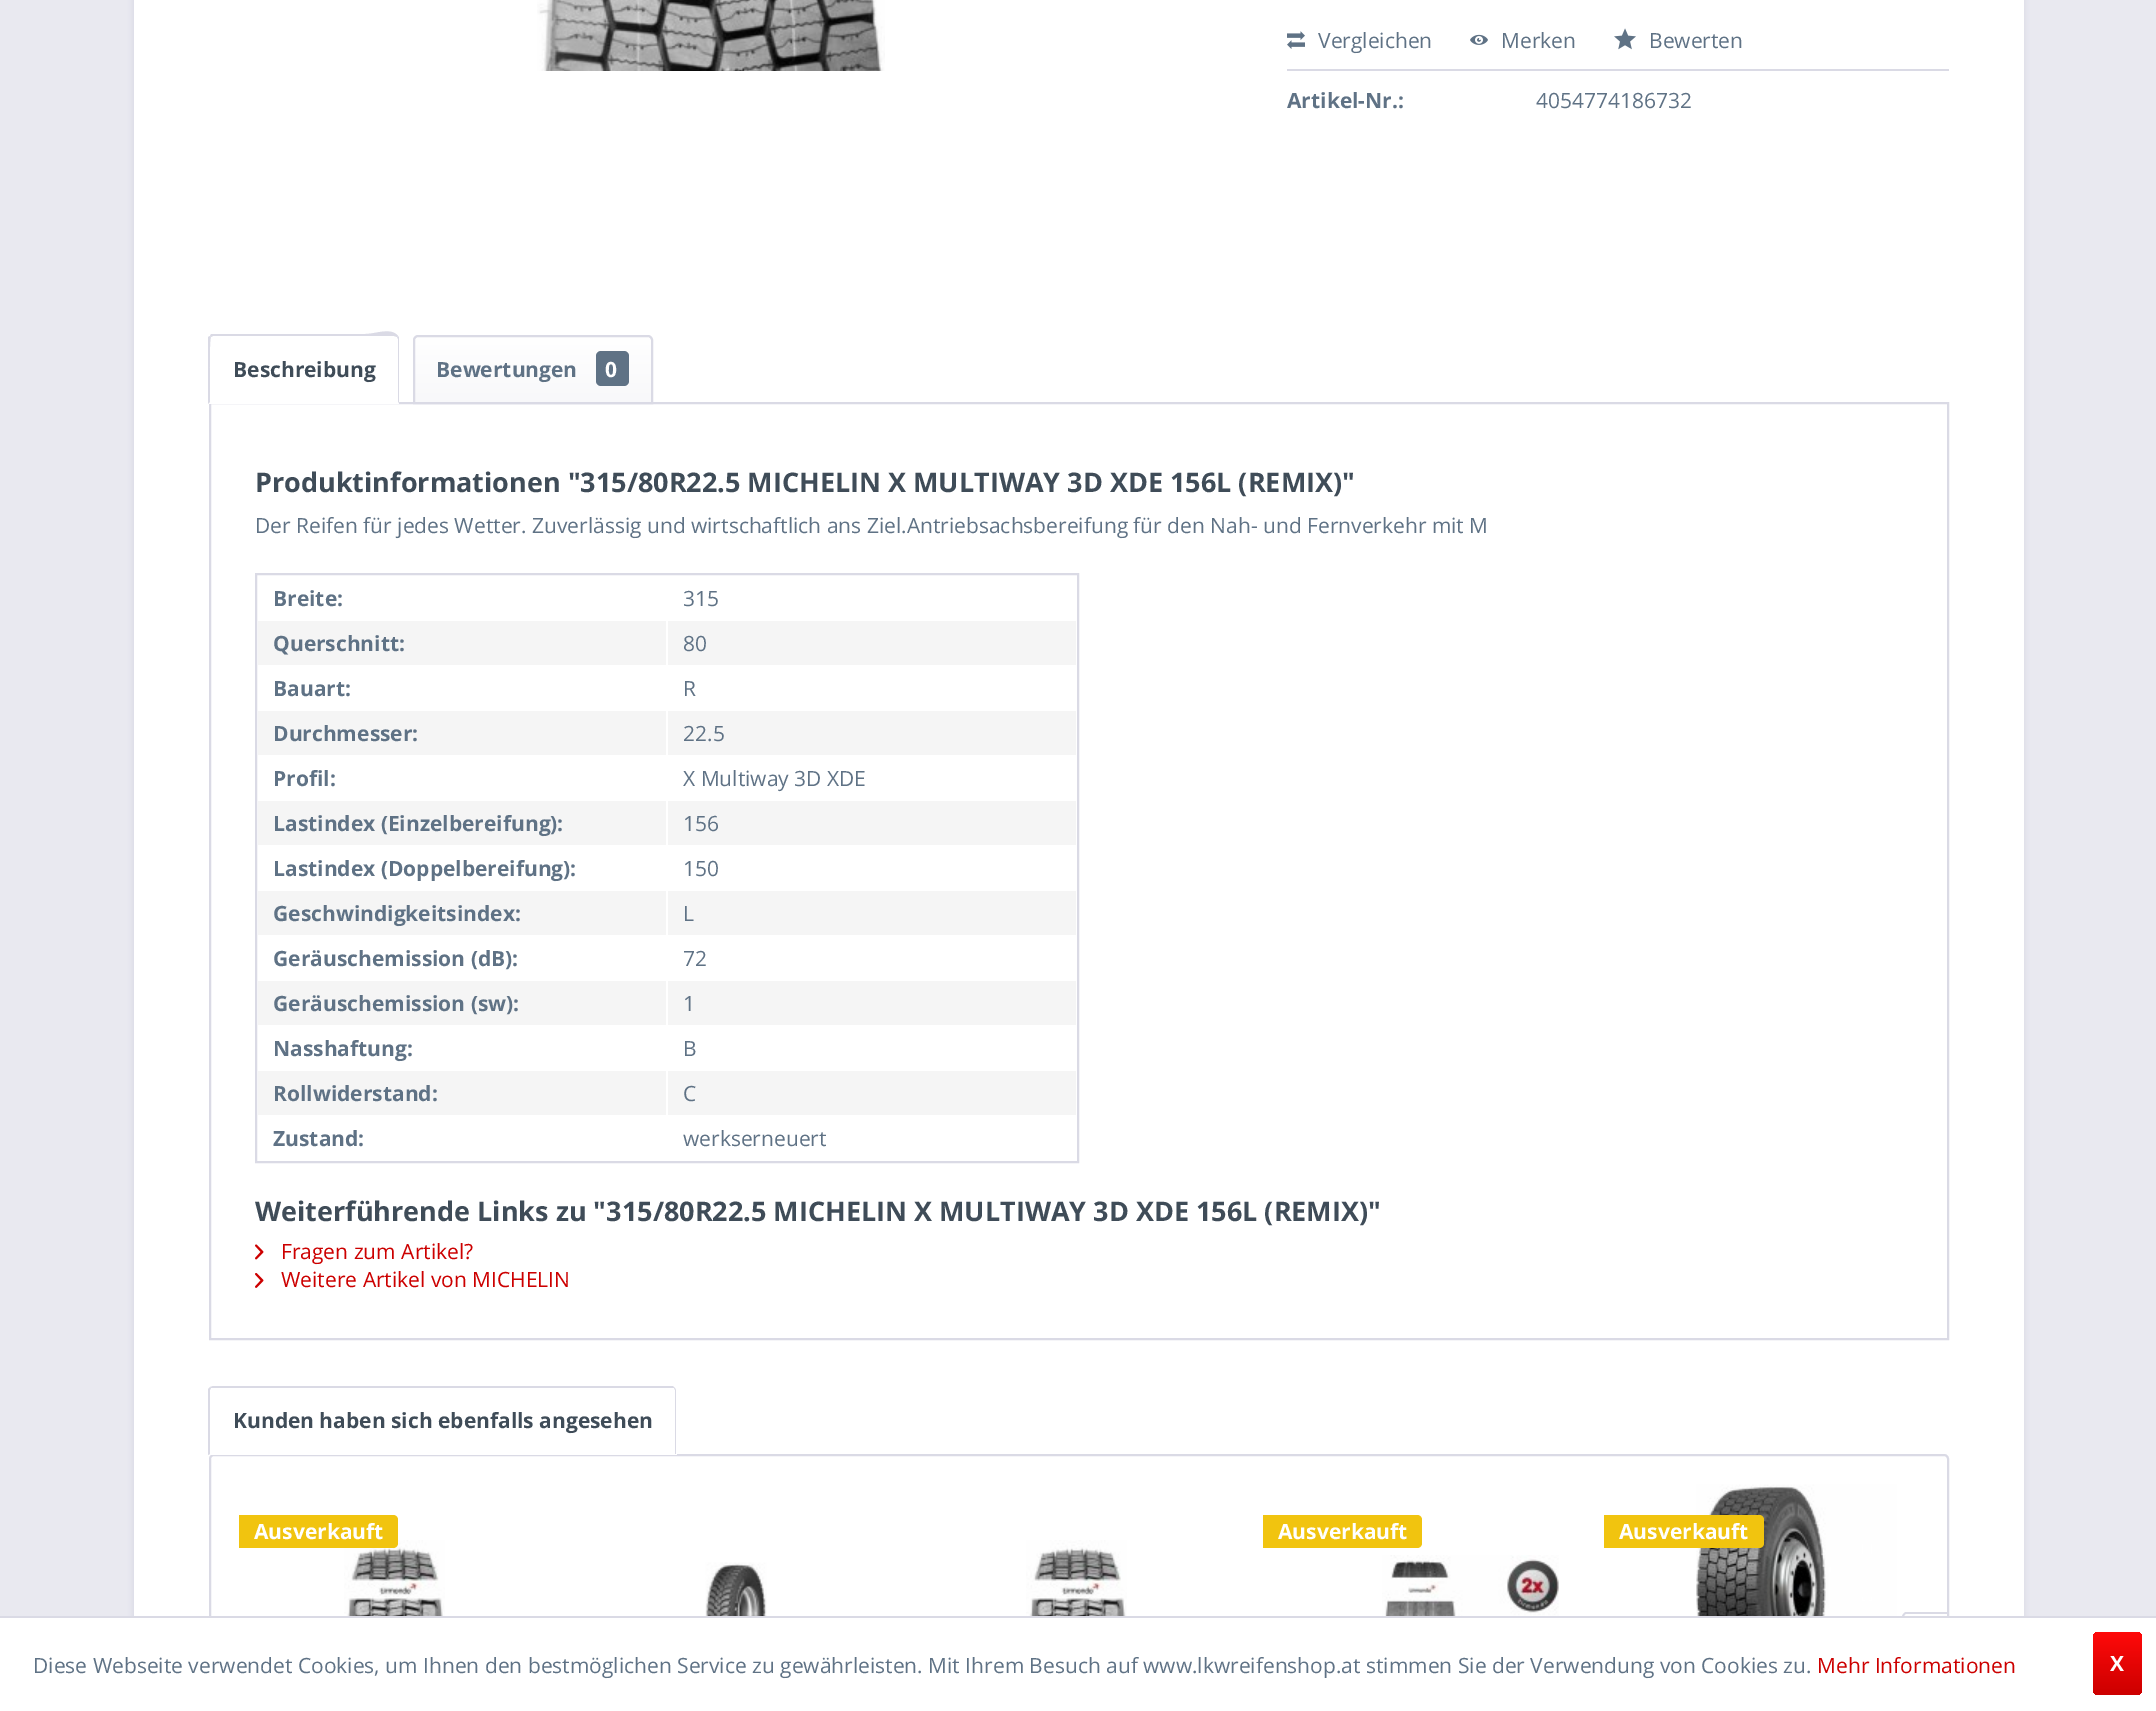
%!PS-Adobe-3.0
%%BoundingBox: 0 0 2156 1711
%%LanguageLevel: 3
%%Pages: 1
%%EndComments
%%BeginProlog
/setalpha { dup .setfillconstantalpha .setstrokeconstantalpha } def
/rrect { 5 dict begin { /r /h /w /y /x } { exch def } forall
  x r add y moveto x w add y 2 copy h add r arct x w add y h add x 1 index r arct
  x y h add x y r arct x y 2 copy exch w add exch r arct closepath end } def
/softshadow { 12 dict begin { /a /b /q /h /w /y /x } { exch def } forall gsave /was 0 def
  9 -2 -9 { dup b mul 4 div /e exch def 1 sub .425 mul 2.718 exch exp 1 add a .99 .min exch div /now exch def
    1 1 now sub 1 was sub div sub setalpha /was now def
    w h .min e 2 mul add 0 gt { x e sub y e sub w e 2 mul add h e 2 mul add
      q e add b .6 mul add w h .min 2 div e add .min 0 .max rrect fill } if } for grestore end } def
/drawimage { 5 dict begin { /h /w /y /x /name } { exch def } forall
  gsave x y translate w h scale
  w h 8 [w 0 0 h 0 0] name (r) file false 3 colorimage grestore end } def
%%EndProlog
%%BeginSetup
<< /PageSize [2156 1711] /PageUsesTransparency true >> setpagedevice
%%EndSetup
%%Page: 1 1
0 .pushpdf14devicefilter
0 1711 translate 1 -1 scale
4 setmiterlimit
0.914 0.914 0.941 setrgbcolor
0 0 2156 1711 rectfill
0.855 0.855 0.898 setrgbcolor
132 -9 1893 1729 0 3 1 softshadow
1 setgray
134 0 1890 1616 rectfill
(images/1.raw) 537 0 348 71 drawimage
0.855 0.855 0.898 setrgbcolor
1287 69 662 2 rectfill
(images/2.raw) 1287 31 18 18 drawimage
(images/3.raw) 1470 34 18 11 drawimage
(images/4.raw) 1614 28 22 22 drawimage
2 setlinewidth
210 403 1738 936 rectstroke
1 setgray
newpath 214 335 moveto 394 335 lineto 397 335 399 337 399 340 curveto 399 404 lineto 209 404 lineto 209 340 lineto 209 337 211 335 214 335 curveto closepath fill
0.855 0.855 0.898 setrgbcolor
newpath 213 336 moveto 211 337 lineto 210 336 lineto 211 334 lineto 365 334 lineto 376 334 391 327 398 336 curveto 397 337 lineto 394 336 lineto closepath fill
newpath 399 404 moveto 399 339 lineto 399 338 399 337 398 336 curveto 397 337 lineto 398 339 lineto 398 402 lineto closepath fill
1 setgray
newpath 399 404 moveto 398 402 lineto 210 402 lineto 208 404 lineto closepath fill
0.855 0.855 0.898 setrgbcolor
newpath 208 404 moveto 208 337 lineto 210 336 lineto 211 337 lineto 209 338 210 395 210 402 curveto closepath fill
gsave newpath 417 336 moveto 648 336 lineto 649.5 336 651 337.5 651 339 curveto 651 402 lineto 414 402 lineto 414 339 lineto 414 337.5 415.5 336 417 336 curveto closepath clip newpath
<< /ShadingType 2 /ColorSpace /DeviceRGB /Coords [533 336 533 402] /Extend [true true] /Function << /FunctionType 2 /Domain [0 1] /C0 [1 1 1] /C1 [0.973 0.973 0.98] /N 1 >> >> shfill grestore
newpath 418 336 moveto 648 336 lineto 650 336 652 338 652 340 curveto 652 403 lineto 414 403 lineto 414 340 lineto 414 338 416 336 418 336 curveto closepath stroke
0.373 0.447 0.522 setrgbcolor
596 351 33 35 5 rrect fill
0.855 0.855 0.898 setrgbcolor
256 574 822 588 rectstroke
0.961 setgray
258 621 408 44 rectfill
668 621 408 44 rectfill
258 711 408 44 rectfill
668 711 408 44 rectfill
258 801 408 44 rectfill
668 801 408 44 rectfill
258 891 408 44 rectfill
668 891 408 44 rectfill
258 981 408 44 rectfill
668 981 408 44 rectfill
258 1071 408 44 rectfill
668 1071 408 44 rectfill
(images/5.raw) 255 1244 9 16 drawimage
(images/6.raw) 255 1273 9 15 drawimage
0.855 0.855 0.898 setrgbcolor
210 1455 1738 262 4 rrect stroke
1 setgray
newpath 214 1386 moveto 672 1386 lineto 675 1386 677 1388 677 1391 curveto 677 1455 lineto 209 1455 lineto 209 1391 lineto 209 1388 211 1386 214 1386 curveto closepath fill
0.855 0.855 0.898 setrgbcolor
newpath 213 1386 moveto 210 1387 lineto 211 1388 lineto 213 1388 lineto 672 1388 lineto 674 1388 lineto 675 1388 lineto 674 1387 673 1386 672 1386 curveto closepath fill
newpath 675 1388 moveto 676 1390 lineto 676 1454 lineto 675 1454 lineto 675 1390 lineto 674 1388 lineto closepath fill
newpath 208 1455 moveto 208 1389 lineto 210 1387 lineto 211 1388 lineto 210 1390 lineto 210 1454 lineto closepath fill
(images/7.raw) 344 1540 101 76 drawimage
0.945 0.769 0.059 setrgbcolor
newpath 239 1515 moveto 393 1515 lineto 396 1515 398 1517 398 1520 curveto 398 1543 lineto 398 1546 396 1548 393 1548 curveto 239 1548 lineto closepath fill
newpath 1263 1515 moveto 1417 1515 lineto 1420 1515 1422 1517 1422 1520 curveto 1422 1543 lineto 1422 1546 1420 1548 1417 1548 curveto 1263 1548 lineto closepath fill
(images/8.raw) 1382 1555 177 61 drawimage
(images/9.raw) 1696 1484 201 132 drawimage
newpath 1604 1515 moveto 1759 1515 lineto 1762 1515 1764 1517 1764 1520 curveto 1764 1543 lineto 1764 1546 1762 1548 1759 1548 curveto 1604 1548 lineto closepath fill
(images/10.raw) 705 1562 62 54 drawimage
(images/11.raw) 1026 1540 101 76 drawimage
0.855 0.855 0.898 setrgbcolor
newpath 1906 1612 moveto 1947 1612 lineto 1947 1702 lineto 1906 1702 lineto 1904 1702 1902 1700 1902 1698 curveto 1902 1617 lineto 1902 1615 1904 1612 1906 1612 curveto closepath 1906 1614 moveto 1947 1614 lineto 1947 1701 lineto 1906 1701 lineto 1905 1701 1904 1700 1904 1698 curveto 1904 1617 lineto 1904 1615 1905 1614 1906 1614 curveto closepath eofill
1 setgray
0 1618 2156 93 rectfill
0.855 0.855 0.898 setrgbcolor
0 1616 2156 2 rectfill
gsave 2093 1632 49 63 5 rrect clip newpath
<< /ShadingType 2 /ColorSpace /DeviceRGB /Coords [2117 1632 2117 1695] /Extend [true true] /Function << /FunctionType 2 /Domain [0 1] /C0 [1 0.039 0.039] /C1 [0.8 0 0] /N 1 >> >> shfill grestore
/OpenSans-Regular [21 0 0 -21 0 0] selectfont
0.373 0.447 0.522 setrgbcolor
1318 48 moveto (Vergleichen) show
1501 48 moveto (Merken) show
1649 48 moveto (Bewerten) show
/OpenSans-Bold [21 0 0 -21 0 0] selectfont
1287 108 moveto (Artikel-Nr.:) show
/OpenSans-Regular [21 0 0 -21 0 0] selectfont
1536 108 moveto (4054774186732) show
/OpenSans-Bold [21 0 0 -21 0 0] selectfont
0.247 0.298 0.345 setrgbcolor
233 377 moveto (Beschreibung) show
0.373 0.447 0.522 setrgbcolor
436 377 moveto (Bewertungen) show
1 setgray
605 377 moveto (0) show
/OpenSans-Bold [27 0 0 -27 0 0] selectfont
0.247 0.298 0.345 setrgbcolor
255 492 moveto (Produktinformationen "315/80R22.5 MICHELIN X MULTIWAY 3D XDE 156L \(REMIX\)") show
/OpenSans-Regular [21 0 0 -21 0 0] selectfont
0.373 0.447 0.522 setrgbcolor
255 533 moveto (Der Reifen für jedes Wetter. Zuverlässig und wirtschaftlich ans Ziel.Antriebsachsbereifung für den Nah- und Fernverkehr mit M) show
/OpenSans-Bold [21 0 0 -21 0 0] selectfont
273 606 moveto (Breite:) show
/OpenSans-Regular [21 0 0 -21 0 0] selectfont
683 606 moveto (315) show
/OpenSans-Bold [21 0 0 -21 0 0] selectfont
273 651 moveto (Querschnitt:) show
/OpenSans-Regular [21 0 0 -21 0 0] selectfont
683 651 moveto (80) show
/OpenSans-Bold [21 0 0 -21 0 0] selectfont
273 696 moveto (Bauart:) show
/OpenSans-Regular [21 0 0 -21 0 0] selectfont
683 696 moveto (R) show
/OpenSans-Bold [21 0 0 -21 0 0] selectfont
273 741 moveto (Durchmesser:) show
/OpenSans-Regular [21 0 0 -21 0 0] selectfont
683 741 moveto (22.5) show
/OpenSans-Bold [21 0 0 -21 0 0] selectfont
273 786 moveto (Profil:) show
/OpenSans-Regular [21 0 0 -21 0 0] selectfont
683 786 moveto (X Multiway 3D XDE) show
/OpenSans-Bold [21 0 0 -21 0 0] selectfont
273 831 moveto (Lastindex \(Einzelbereifung\):) show
/OpenSans-Regular [21 0 0 -21 0 0] selectfont
683 831 moveto (156) show
/OpenSans-Bold [21 0 0 -21 0 0] selectfont
273 876 moveto (Lastindex \(Doppelbereifung\):) show
/OpenSans-Regular [21 0 0 -21 0 0] selectfont
683 876 moveto (150) show
/OpenSans-Bold [21 0 0 -21 0 0] selectfont
273 921 moveto (Geschwindigkeitsindex:) show
/OpenSans-Regular [21 0 0 -21 0 0] selectfont
683 921 moveto (L) show
/OpenSans-Bold [21 0 0 -21 0 0] selectfont
273 966 moveto (Geräuschemission \(dB\):) show
/OpenSans-Regular [21 0 0 -21 0 0] selectfont
683 966 moveto (72) show
/OpenSans-Bold [21 0 0 -21 0 0] selectfont
273 1011 moveto (Geräuschemission \(sw\):) show
/OpenSans-Regular [21 0 0 -21 0 0] selectfont
683 1011 moveto (1) show
/OpenSans-Bold [21 0 0 -21 0 0] selectfont
273 1056 moveto (Nasshaftung:) show
/OpenSans-Regular [21 0 0 -21 0 0] selectfont
683 1056 moveto (B) show
/OpenSans-Bold [21 0 0 -21 0 0] selectfont
273 1101 moveto (Rollwiderstand:) show
/OpenSans-Regular [21 0 0 -21 0 0] selectfont
683 1101 moveto (C) show
/OpenSans-Bold [21 0 0 -21 0 0] selectfont
273 1146 moveto (Zustand:) show
/OpenSans-Regular [21 0 0 -21 0 0] selectfont
683 1146 moveto (werkserneuert) show
/OpenSans-Bold [27 0 0 -27 0 0] selectfont
0.247 0.298 0.345 setrgbcolor
255 1221 moveto (Weiterführende Links zu "315/80R22.5 MICHELIN X MULTIWAY 3D XDE 156L \(REMIX\)") show
/OpenSans-Regular [21 0 0 -21 0 0] selectfont
0.8 0 0 setrgbcolor
281 1259 moveto (Fragen zum Artikel?) show
281 1287 moveto (Weitere Artikel von MICHELIN) show
/OpenSans-Bold [21 0 0 -21 0 0] selectfont
0.247 0.298 0.345 setrgbcolor
233 1428 moveto (Kunden haben sich ebenfalls angesehen) show
1 setgray
254 1539 moveto (Ausverkauft) show
1278 1539 moveto (Ausverkauft) show
1619 1539 moveto (Ausverkauft) show
/OpenSans-Regular [21 0 0 -21 0 0] selectfont
0.373 0.447 0.522 setrgbcolor
33 1673 moveto (Diese Webseite verwendet Cookies, um Ihnen den bestmöglichen Service zu gewährleisten. Mit Ihrem Besuch auf www.lkwreifenshop.at stimmen Sie der Verwendung von Cookies zu.) show
0.8 0 0 setrgbcolor
1817 1673 moveto (Mehr Informationen) show
/OpenSans-Bold [21 0 0 -21 0 0] selectfont
1 setgray
2110 1671 moveto (X) show
.poppdf14devicefilter showpage
%%EOF
